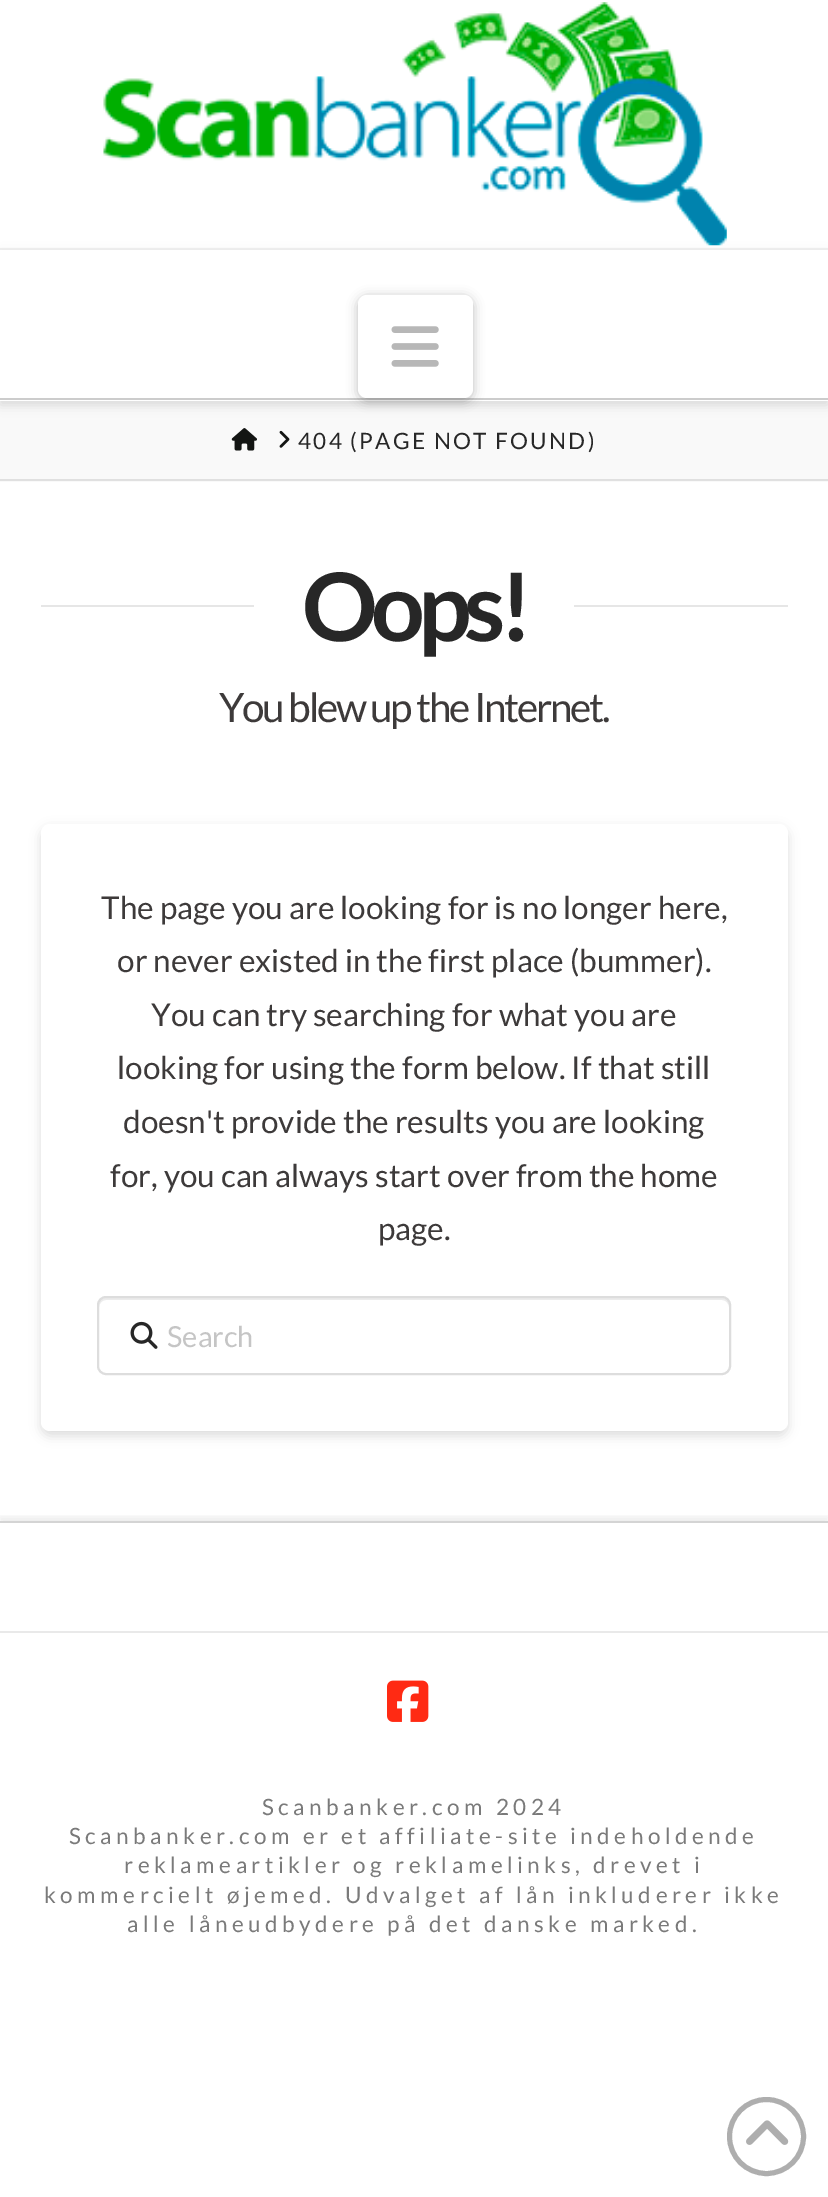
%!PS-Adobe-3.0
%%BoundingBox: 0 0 828 2197
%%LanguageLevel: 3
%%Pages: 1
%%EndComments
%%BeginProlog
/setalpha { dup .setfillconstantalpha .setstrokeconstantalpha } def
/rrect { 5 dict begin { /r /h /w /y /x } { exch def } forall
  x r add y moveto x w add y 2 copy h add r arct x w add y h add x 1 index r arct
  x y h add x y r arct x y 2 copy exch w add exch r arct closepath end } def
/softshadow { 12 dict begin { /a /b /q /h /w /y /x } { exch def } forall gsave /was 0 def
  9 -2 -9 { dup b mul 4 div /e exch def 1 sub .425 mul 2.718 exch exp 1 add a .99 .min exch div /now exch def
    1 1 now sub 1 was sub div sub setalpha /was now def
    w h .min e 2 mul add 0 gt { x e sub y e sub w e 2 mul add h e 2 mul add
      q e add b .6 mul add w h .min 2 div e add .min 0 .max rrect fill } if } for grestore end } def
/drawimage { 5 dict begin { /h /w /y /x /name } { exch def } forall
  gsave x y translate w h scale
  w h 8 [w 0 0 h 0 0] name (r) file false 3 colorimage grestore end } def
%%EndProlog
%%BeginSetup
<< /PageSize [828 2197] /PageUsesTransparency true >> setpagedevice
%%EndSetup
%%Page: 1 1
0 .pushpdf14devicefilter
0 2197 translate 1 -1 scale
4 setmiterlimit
1 setgray
0 0 828 2197 rectfill
0.949 setgray
0 248 828 2 rectfill
(images/1.raw) 103 2 624 244 drawimage
0.976 setgray
0 401 828 81 rectfill
0 setgray
0 254 828 151 0 5.5 0.13 softshadow
1 setgray
0 250 828 151 rectfill
0.8 setgray
0 398 828 2 rectfill
0 setgray
358 297 115 104 9 5.5 0.25 softshadow
1 setgray
358 295 115 103 9 rrect fill
(images/2.raw) 391 326 48 41 drawimage
0.878 setgray
0 479 828 2 rectfill
(images/3.raw) 231 428 26 23 drawimage
(images/4.raw) 279 430 11 18 drawimage
0.902 setgray
41 605 213 2 rectfill
574 605 214 2 rectfill
0 setgray
41 828 747 608 9 5.5 0.13 softshadow
1 setgray
41 824 747 607 9 rrect fill
0.925 setgray
newpath 106 1300 moveto 722 1300 lineto 726 1300 729 1304 729 1307 curveto 729 1305 lineto 729 1301 726 1298 722 1298 curveto 106 1298 lineto 102 1298 99 1301 99 1305 curveto 99 1307 lineto 99 1304 102 1300 106 1300 curveto closepath fill
0.867 setgray
2 setlinewidth
98 1297 632 77 8 rrect stroke
(images/5.raw) 130 1321 28 28 drawimage
gsave
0 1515 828 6 rectclip
0 setgray
0 1517 828 110 0 4 0.07 softshadow
grestore
0.831 setgray
0 1521 828 2 rectfill
0.914 setgray
0 1631 828 2 rectfill
(images/6.raw) 387 1680 42 42 drawimage
0.682 setgray
5 setlinewidth
newpath 766.5 2136.5 37 0 360 arc closepath stroke
(images/7.raw) 746 2120 43 25 drawimage
/Lato-Regular [22.5 0 0 -22.5 0 0] selectfont
0.153 setgray
298 449 moveto 2.25 0 (404 \(PAGE NOT FOUND\)) ashow
/Lato-Bold [94.5 0 0 -94.5 0 0] selectfont
302 641 moveto -6.75 0 (Oops!) ashow
/Lato-Regular [40.5 0 0 -40.5 0 0] selectfont
0.239 0.227 0.227 setrgbcolor
219 722 moveto -2.25 0 (You blew up the Internet.) ashow
/Lato-Regular [31.5 0 0 -31.5 0 0] selectfont
101 919 moveto (The page you are looking for is no longer here,) show
117 972 moveto (or never existed in the first place \(bummer\).) show
151 1026 moveto (You can try searching for what you are) show
117 1079 moveto (looking for using the form below. If that still) show
123 1133 moveto (doesn't provide the results you are looking) show
110 1187 moveto (for, you can always start over from the home) show
378 1240 moveto (page.) show
/Lato-Regular [29 0 0 -29 0 0] selectfont
0.773 setgray
167 1347 moveto (Search) show
/Lato-Regular [22.5 0 0 -22.5 0 0] selectfont
0.478 setgray
262 1815 moveto 4.5 0 (Scanbanker.com 2024) ashow
69 1844 moveto 4.5 0 (Scanbanker.com er et affiliate-site indeholdende) ashow
124 1873 moveto 4.5 0 (reklameartikler og reklamelinks, drevet i) ashow
44 1903 moveto 4.5 0 (kommercielt øjemed. Udvalget af lån inkluderer ikke) ashow
127 1932 moveto 4.5 0 (alle låneudbydere på det danske marked.) ashow
.poppdf14devicefilter showpage
%%EOF
